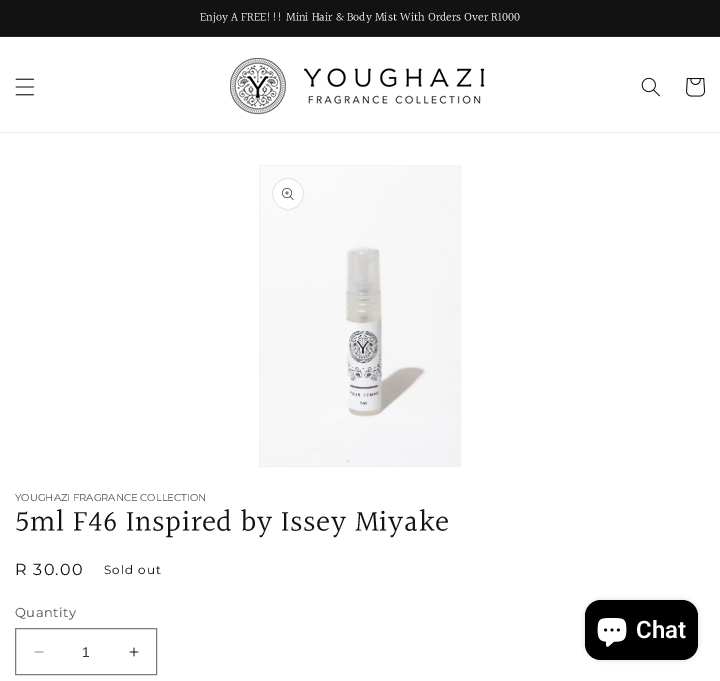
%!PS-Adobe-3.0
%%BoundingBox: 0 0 720 681
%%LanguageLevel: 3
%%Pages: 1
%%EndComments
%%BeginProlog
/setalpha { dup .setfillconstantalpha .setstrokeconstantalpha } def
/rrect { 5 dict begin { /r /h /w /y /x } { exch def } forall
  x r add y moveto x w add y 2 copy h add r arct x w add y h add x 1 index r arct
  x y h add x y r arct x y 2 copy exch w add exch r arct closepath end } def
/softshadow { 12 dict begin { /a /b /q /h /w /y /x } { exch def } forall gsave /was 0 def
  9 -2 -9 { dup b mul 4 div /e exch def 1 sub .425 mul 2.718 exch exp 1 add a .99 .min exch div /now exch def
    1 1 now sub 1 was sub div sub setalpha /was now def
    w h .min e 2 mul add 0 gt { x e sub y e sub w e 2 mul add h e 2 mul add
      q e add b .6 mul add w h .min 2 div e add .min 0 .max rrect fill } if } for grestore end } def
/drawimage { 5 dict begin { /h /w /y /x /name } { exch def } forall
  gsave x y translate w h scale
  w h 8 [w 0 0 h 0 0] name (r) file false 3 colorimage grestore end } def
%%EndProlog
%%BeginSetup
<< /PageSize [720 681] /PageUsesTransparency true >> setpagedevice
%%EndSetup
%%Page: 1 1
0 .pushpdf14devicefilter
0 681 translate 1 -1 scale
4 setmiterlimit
1 setgray
0 0 720 681 rectfill
0.071 setgray
0 0 720 36 rectfill
0.145 setgray
0 36 720 1 rectfill
0.925 setgray
0 132 720 1 rectfill
(images/1.raw) 15 78 20 18 drawimage
(images/2.raw) 230 58 255 57 drawimage
(images/3.raw) 641 77 19 20 drawimage
(images/4.raw) 686 78 20 19 drawimage
0.953 setgray
259.5 165.5 201 301 rectstroke
(images/5.raw) 260 166 200 300 drawimage
1 setgray
newpath 288 194 16 0 360 arc closepath fill
0.1 setalpha
0.071 setgray
newpath 288 194 15.5 0 360 arc closepath stroke
1 setalpha
(images/6.raw) 282 188 12 12 drawimage
(images/7.raw) 34 651 10 2 drawimage
(images/8.raw) 129 647 10 10 drawimage
0.49 setgray
15.5 628.5 141 46 rectstroke
0 setgray
585 600 113 60 16 2.5 0.15 softshadow
585 600 113 60 16 rrect fill
(images/9.raw) 597 618 30 29 drawimage
/Halant-Regular [12 0 0 -12 0 0] selectfont
1 setgray
200 21 moveto (Enjoy A FREE!!! Mini Hair & Body Mist With Orders Over R1000) show
/Montserrat-Regular [10 0 0 -10 0 0] selectfont
0.302 setgray
15 501 moveto (YOUGHAZI FRAGRANCE COLLECTION) show
/Halant-Regular [30 0 0 -30 0 0] selectfont
0.071 setgray
15 532 moveto 0.6 0 (5ml F46 Inspired by Issey Miyake) ashow
/Montserrat-Regular [16 0 0 -16 0 0] selectfont
15 575 moveto 1.25 0 (R 30.00) ashow
/Montserrat-Regular [12 0 0 -12 0 0] selectfont
104 574 moveto 1 0 (Sold out) ashow
/Montserrat-Regular [13 0 0 -13 0 0] selectfont
0.302 setgray
15 617 moveto 0.5 0 (Quantity) ashow
/LiberationSans-Regular [14 0 0 -14 0 0] selectfont
0.212 setgray
82 657 moveto (1) show
/Roboto-SemiBold [24 0 0 -24 0 0] selectfont
1 setgray
636 638 moveto (Chat) show
.poppdf14devicefilter showpage
%%EOF
